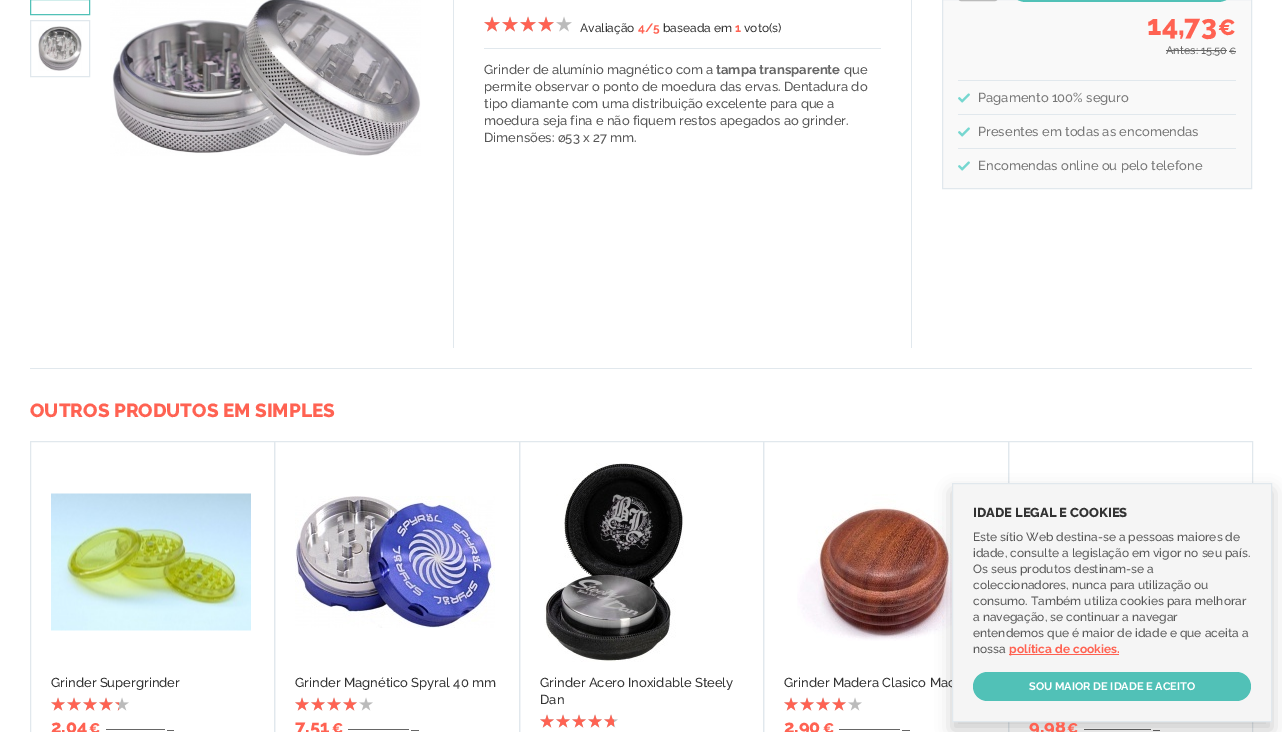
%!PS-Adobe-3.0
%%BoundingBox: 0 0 1282 732
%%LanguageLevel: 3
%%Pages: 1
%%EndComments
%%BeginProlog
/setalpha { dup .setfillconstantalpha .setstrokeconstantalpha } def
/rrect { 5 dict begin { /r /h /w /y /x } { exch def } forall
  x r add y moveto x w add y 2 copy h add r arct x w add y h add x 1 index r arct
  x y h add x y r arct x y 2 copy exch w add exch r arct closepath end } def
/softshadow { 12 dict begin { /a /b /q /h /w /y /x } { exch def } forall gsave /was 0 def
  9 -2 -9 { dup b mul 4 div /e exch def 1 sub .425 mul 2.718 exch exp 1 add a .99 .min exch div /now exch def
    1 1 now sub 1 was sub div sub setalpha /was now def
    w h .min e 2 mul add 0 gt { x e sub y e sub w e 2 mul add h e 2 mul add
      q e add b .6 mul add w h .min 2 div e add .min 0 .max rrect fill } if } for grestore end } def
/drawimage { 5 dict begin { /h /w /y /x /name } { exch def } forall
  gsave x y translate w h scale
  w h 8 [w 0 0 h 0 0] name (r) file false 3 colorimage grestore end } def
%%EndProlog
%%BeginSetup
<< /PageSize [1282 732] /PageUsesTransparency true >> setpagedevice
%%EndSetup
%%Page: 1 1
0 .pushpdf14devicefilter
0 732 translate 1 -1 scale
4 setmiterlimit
1 setgray
0 0 1282 732 rectfill
0.882 0.91 0.929 setrgbcolor
30 368 1222 1 rectfill
0.318 0.757 0.718 setrgbcolor
30.5 -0.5 59 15 rectstroke
0.882 0.91 0.929 setrgbcolor
30.5 20.5 59 56 rectstroke
(images/1.raw) 38 26 44 45 drawimage
(images/2.raw) 110 0 311 156 drawimage
911 0 1 348 rectfill
453 0 1 348 rectfill
(images/3.raw) 484 16 16 16 drawimage
(images/3.raw) 502 16 16 16 drawimage
(images/3.raw) 520 16 16 16 drawimage
(images/3.raw) 538 16 16 16 drawimage
(images/3.raw) 556 16 16 16 drawimage
(images/4.raw) 484 16 16 16 drawimage
(images/4.raw) 502 16 16 16 drawimage
(images/4.raw) 520 16 16 16 drawimage
(images/4.raw) 538 16 16 16 drawimage
484 48 397 1 rectfill
0.976 setgray
newpath 942.5 -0.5 moveto 1251.5 -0.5 lineto 1251.5 188.5 lineto 942.5 188.5 lineto closepath gsave fill grestore
0.882 0.91 0.929 setrgbcolor
stroke
0.733 setgray
958.5 -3.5 39 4 2.5 rrect stroke
0.318 0.757 0.718 setrgbcolor
1008 -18 228 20 18 rrect fill
0.4 setgray
1166 50 61 1 rectfill
1229 51 7 1 rectfill
(images/5.raw) 958 93 12 10 drawimage
0.882 0.91 0.929 setrgbcolor
958 80 278 1 rectfill
(images/5.raw) 958 127 12 10 drawimage
958 114 278 1 rectfill
(images/5.raw) 958 161 12 10 drawimage
958 148 278 1 rectfill
30.5 441.5 244 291 rectstroke
(images/6.raw) 51 493 200 138 drawimage
(images/7.raw) 51 697 14 14 drawimage
(images/7.raw) 67 697 14 14 drawimage
(images/7.raw) 83 697 14 14 drawimage
(images/7.raw) 99 697 14 14 drawimage
(images/7.raw) 115 697 14 14 drawimage
(images/8.raw) 51 697 14 14 drawimage
(images/8.raw) 67 697 14 14 drawimage
(images/8.raw) 83 697 14 14 drawimage
(images/8.raw) 99 697 14 14 drawimage
(images/9.raw) 115 702 4 9 drawimage
0.4 setgray
106 729 59 1 rectfill
167 730 7 1 rectfill
0.882 0.91 0.929 setrgbcolor
274.5 441.5 245 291 rectstroke
(images/10.raw) 295 496 200 132 drawimage
(images/7.raw) 295 697 14 14 drawimage
(images/7.raw) 311 697 14 14 drawimage
(images/7.raw) 327 697 14 14 drawimage
(images/7.raw) 343 697 14 14 drawimage
(images/7.raw) 359 697 14 14 drawimage
(images/8.raw) 295 697 14 14 drawimage
(images/8.raw) 311 697 14 14 drawimage
(images/8.raw) 327 697 14 14 drawimage
(images/8.raw) 343 697 14 14 drawimage
0.4 setgray
348 729 61 1 rectfill
411 730 8 1 rectfill
0.882 0.91 0.929 setrgbcolor
519.5 441.5 244 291 rectstroke
(images/11.raw) 544 463 140 199 drawimage
(images/7.raw) 540 714 14 14 drawimage
(images/7.raw) 556 714 14 14 drawimage
(images/7.raw) 572 714 14 14 drawimage
(images/7.raw) 588 714 14 14 drawimage
(images/7.raw) 604 714 14 14 drawimage
(images/8.raw) 540 714 14 14 drawimage
(images/8.raw) 556 714 14 14 drawimage
(images/8.raw) 572 714 14 14 drawimage
(images/8.raw) 588 714 14 14 drawimage
(images/12.raw) 604 714 10 14 drawimage
763.5 441.5 245 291 rectstroke
(images/13.raw) 797 494 155 147 drawimage
(images/7.raw) 784 697 14 14 drawimage
(images/7.raw) 800 697 14 14 drawimage
(images/7.raw) 816 697 14 14 drawimage
(images/7.raw) 832 697 14 14 drawimage
(images/7.raw) 848 697 14 14 drawimage
(images/8.raw) 784 697 14 14 drawimage
(images/8.raw) 800 697 14 14 drawimage
(images/8.raw) 816 697 14 14 drawimage
(images/8.raw) 832 697 14 14 drawimage
0.4 setgray
839 729 61 1 rectfill
902 730 8 1 rectfill
0.882 0.91 0.929 setrgbcolor
1008.5 441.5 244 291 rectstroke
0.4 setgray
1084 729 67 1 rectfill
1153 730 7 1 rectfill
0 setgray
952 491 320 239 0 8 0.2 softshadow
/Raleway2-Thin [12 0 0 -12 0 0] selectfont
0.2 setgray
580 32 moveto (Avaliação) show
/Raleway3-Thin [12 0 0 -12 0 0] selectfont
1 0.384 0.322 setrgbcolor
638 32 moveto (4/5) show
/Raleway2-Thin [12 0 0 -12 0 0] selectfont
0.2 setgray
663 32 moveto (baseada em) show
/Raleway3-Thin [12 0 0 -12 0 0] selectfont
1 0.384 0.322 setrgbcolor
735 32 moveto (1) show
/Raleway2-Thin [12 0 0 -12 0 0] selectfont
0.2 setgray
744 32 moveto (voto\(s\)) show
/Raleway2-Thin [13 0 0 -13 0 0] selectfont
0.341 setgray
484 74 moveto (Grinder de alumínio magnético com a) show
/Raleway3-Thin [13 0 0 -13 0 0] selectfont
0.4 setgray
716 74 moveto (tampa transparente) show
/Raleway2-Thin [13 0 0 -13 0 0] selectfont
0.341 setgray
844 74 moveto (que) show
484 91 moveto (permite observar o ponto de moedura das ervas. Dentadura do) show
484 108 moveto (tipo diamante com uma distribuição excelente para que a) show
484 125 moveto (moedura seja fina e não fiquem restos apegados ao grinder.) show
484 142 moveto (Dimensões: ø53 x 27 mm.) show
/Raleway-Thin [28 0 0 -28 0 0] selectfont
1 0.384 0.322 setrgbcolor
1147 35 moveto (14,73) show
/Raleway-Thin [22 0 0 -22 0 0] selectfont
1218 35 moveto (€) show
/Raleway2-Thin [11 0 0 -11 0 0] selectfont
0.4 setgray
1166 54 moveto (Antes: 15,50) show
/Raleway2-Thin [9 0 0 -9 0 0] selectfont
1229 54 moveto (€) show
/Raleway2-Thin [13 0 0 -13 0 0] selectfont
0.467 setgray
978 102 moveto (Pagamento 100% seguro) show
978 136 moveto (Presentes em todas as encomendas) show
978 170 moveto (Encomendas online ou pelo telefone) show
/Raleway-Thin [19 0 0 -19 0 0] selectfont
1 0.384 0.322 setrgbcolor
30 417 moveto (OUTROS PRODUTOS EM SIMPLES) show
/Raleway2-Thin [13 0 0 -13 0 0] selectfont
0.2 setgray
51 687 moveto (Grinder Supergrinder) show
/Raleway-Thin [18 0 0 -18 0 0] selectfont
1 0.384 0.322 setrgbcolor
51 733 moveto (2,04) show
/Raleway-Thin [14 0 0 -14 0 0] selectfont
89 733 moveto (€) show
/Raleway2-Thin [13 0 0 -13 0 0] selectfont
0.2 setgray
295 687 moveto (Grinder Magnético Spyral 40 mm) show
/Raleway-Thin [18 0 0 -18 0 0] selectfont
1 0.384 0.322 setrgbcolor
295 733 moveto (7,51) show
/Raleway-Thin [14 0 0 -14 0 0] selectfont
332 733 moveto (€) show
/Raleway2-Thin [13 0 0 -13 0 0] selectfont
0.2 setgray
540 687 moveto (Grinder Acero Inoxidable Steely) show
540 704 moveto (Dan) show
784 687 moveto (Grinder Madera Clasico Mac) show
/Raleway-Thin [18 0 0 -18 0 0] selectfont
1 0.384 0.322 setrgbcolor
784 733 moveto (2,90) show
/Raleway-Thin [14 0 0 -14 0 0] selectfont
823 733 moveto (€) show
/Raleway-Thin [18 0 0 -18 0 0] selectfont
1029 733 moveto (9,98) show
/Raleway-Thin [14 0 0 -14 0 0] selectfont
1067 733 moveto (€) show
0.961 setgray
newpath 952.5 483.5 moveto 1271.5 483.5 lineto 1271.5 721.5 lineto 952.5 721.5 lineto closepath gsave fill grestore
0.882 0.91 0.929 setrgbcolor
stroke
/Raleway-Thin [13 0 0 -13 0 0] selectfont
0.2 setgray
973 517 moveto (IDADE LEGAL E COOKIES) show
/Raleway2-Thin [12 0 0 -12 0 0] selectfont
0.341 setgray
973 541 moveto (Este sítio Web destina-se a pessoas maiores de) show
973 557 moveto (idade, consulte a legislação em vigor no seu país.) show
973 573 moveto (Os seus produtos destinam-se a) show
973 589 moveto (coleccionadores, nunca para utilização ou) show
973 605 moveto (consumo. Também utiliza cookies para melhorar) show
973 621 moveto (a navegação, se continuar a navegar) show
973 637 moveto (entendemos que é maior de idade e que aceita a) show
973 653 moveto (nossa) show
1 0.384 0.322 setrgbcolor
1009 654 110 1 rectfill
/Raleway3-Thin [12 0 0 -12 0 0] selectfont
1009 653 moveto (política de cookies.) show
0.318 0.757 0.718 setrgbcolor
973 672 278 29 14.5 rrect fill
/Raleway3-Thin [11 0 0 -11 0 0] selectfont
1 setgray
1029 690 moveto (SOU MAIOR DE IDADE E ACEITO) show
.poppdf14devicefilter showpage
%%EOF
